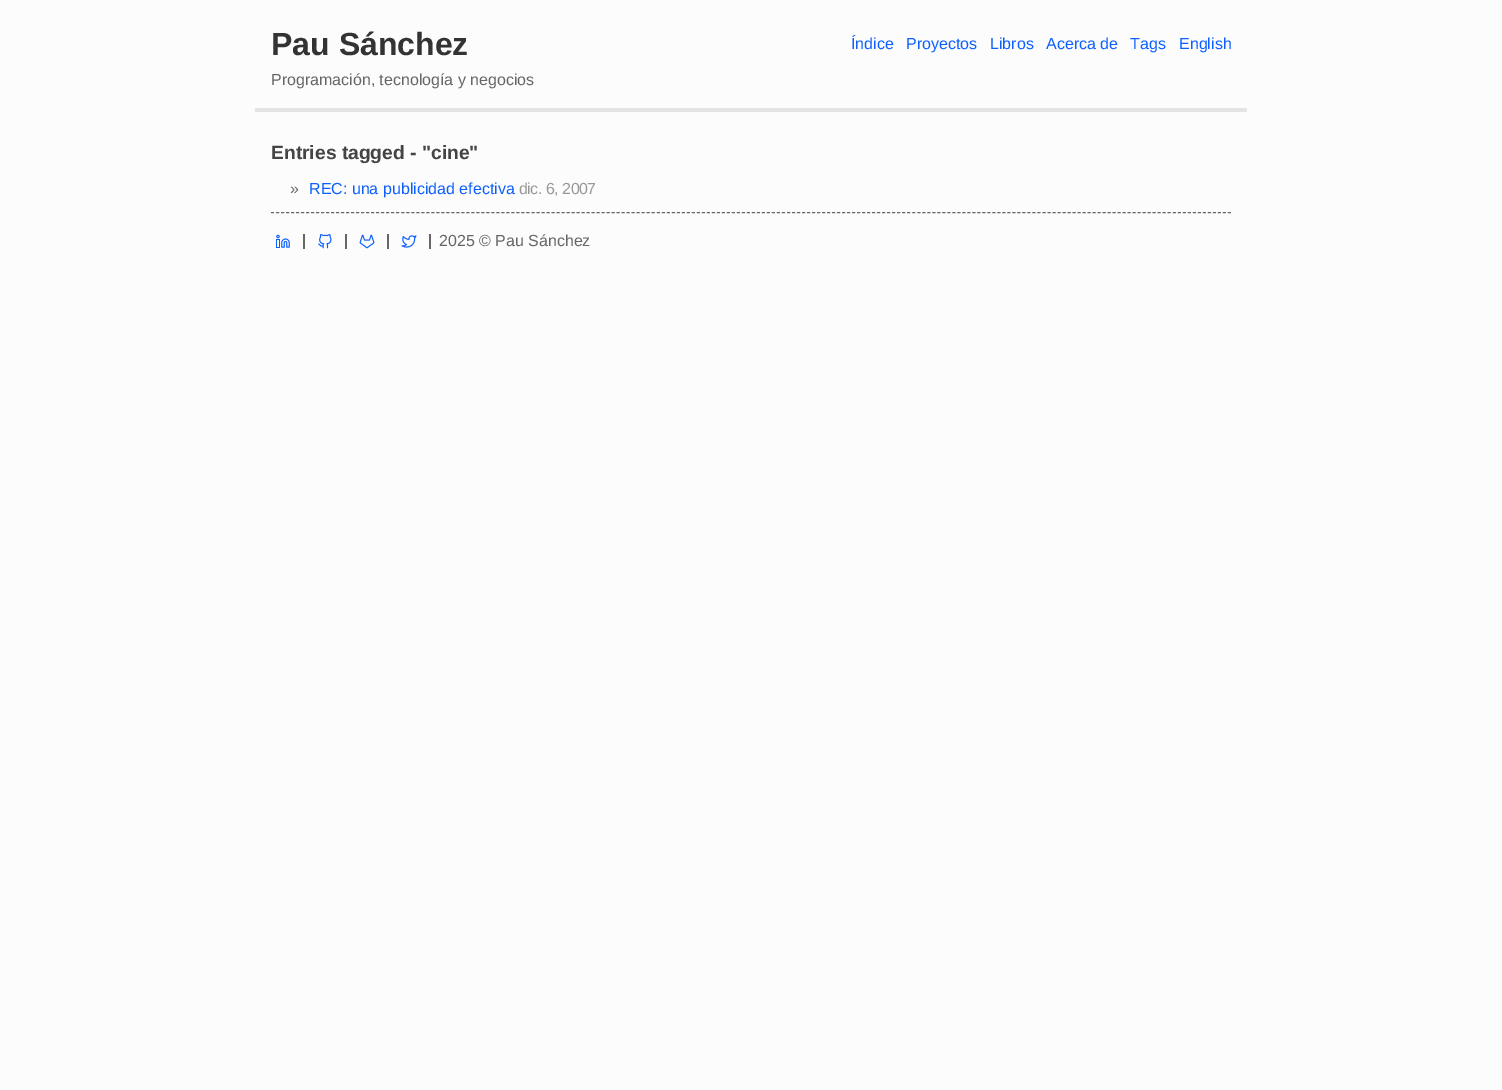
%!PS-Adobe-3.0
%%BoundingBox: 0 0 1502 1090
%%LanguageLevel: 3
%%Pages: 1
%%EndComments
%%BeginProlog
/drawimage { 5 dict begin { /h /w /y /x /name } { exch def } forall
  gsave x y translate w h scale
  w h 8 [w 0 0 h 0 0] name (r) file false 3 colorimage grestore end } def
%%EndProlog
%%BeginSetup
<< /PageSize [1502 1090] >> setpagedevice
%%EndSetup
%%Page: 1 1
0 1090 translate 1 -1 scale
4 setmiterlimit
0.988 setgray
0 0 1502 1090 rectfill
0.894 setgray
255 108 992 4 rectfill
0.4 setgray
[3 2.01] 0 setdash
newpath 271 212.5 moveto 1231 212.5 lineto stroke
(images/1.raw) 276 234 14 14 drawimage
303 234 2 15 rectfill
(images/2.raw) 318 234 14 15 drawimage
345 234 2 15 rectfill
(images/3.raw) 359 234 16 15 drawimage
387 234 2 15 rectfill
(images/4.raw) 401 235 16 13 drawimage
429 234 2 15 rectfill
/LiberationSans-Bold [32 0 0 -32 0 0] selectfont
0.2 setgray
271 55 moveto (Pau Sánchez) show
/LiberationSans-Regular [16 0 0 -16 0 0] selectfont
0.051 0.376 1 setrgbcolor
851 49 moveto (Índice) show
906 49 moveto (Proyectos) show
990 49 moveto (Libros) show
1046 49 moveto (Acerca de) show
1130 49 moveto (Tags) show
1179 49 moveto (English) show
0.4 setgray
271 85 moveto (Programación, tecnología y negocios) show
/LiberationSans-Bold [19.25 0 0 -19.25 0 0] selectfont
0.267 setgray
271 159 moveto (Entries tagged - "cine") show
/LiberationSans-Regular [16 0 0 -16 0 0] selectfont
0.4 setgray
290 194 moveto (») show
0.051 0.376 1 setrgbcolor
309 194 moveto (REC: una publicidad efectiva) show
0.6 setgray
519 194 moveto -0.5 0 (dic. 6, 2007) ashow
0.4 setgray
439 246 moveto (2025 © Pau Sánchez) show
showpage
%%EOF
